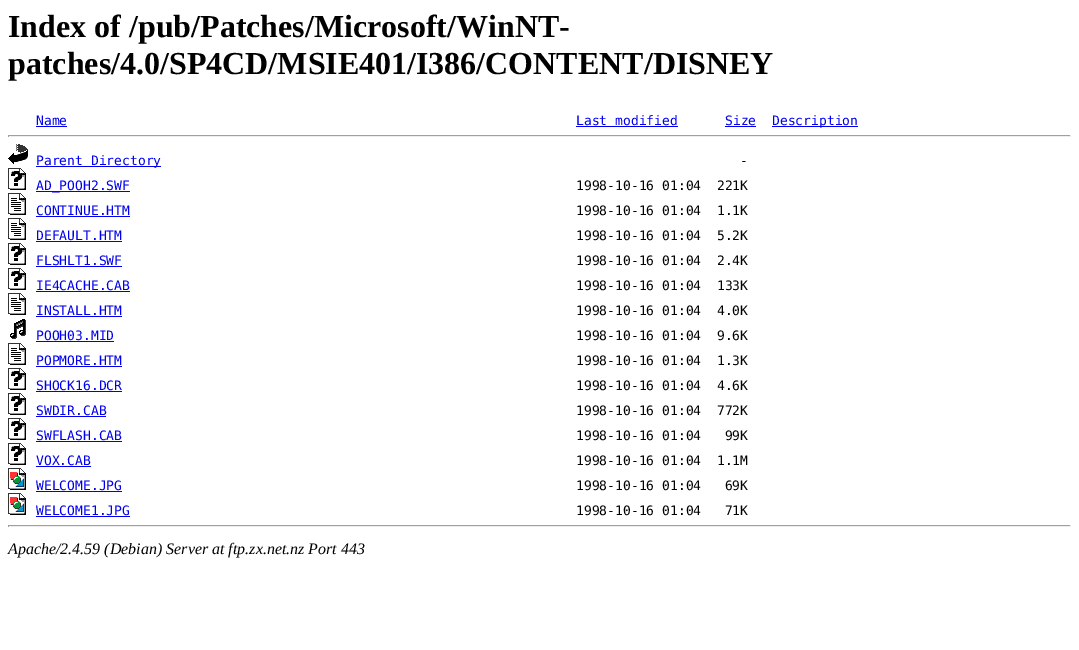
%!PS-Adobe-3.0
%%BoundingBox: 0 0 1079 650
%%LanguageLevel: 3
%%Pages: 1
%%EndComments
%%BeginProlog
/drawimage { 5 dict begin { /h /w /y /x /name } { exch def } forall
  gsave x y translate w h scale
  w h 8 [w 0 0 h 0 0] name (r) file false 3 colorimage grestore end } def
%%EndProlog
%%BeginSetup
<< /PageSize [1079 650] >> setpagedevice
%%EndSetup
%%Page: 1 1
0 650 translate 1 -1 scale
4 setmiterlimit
1 setgray
0 0 1079 650 rectfill
0 0 0.933 setrgbcolor
36 126 31 1 rectfill
576 126 102 1 rectfill
725 126 31 1 rectfill
772 126 86 1 rectfill
0.624 setgray
8 135 1063 1 rectfill
0.933 setgray
1070 135 1 2 rectfill
8 136 1063 1 rectfill
0.624 setgray
8 135 1 2 rectfill
(images/1.raw) 8 144 20 20 drawimage
0 0 0.933 setrgbcolor
36 166 125 1 rectfill
(images/2.raw) 8 168 18 22 drawimage
36 191 94 1 rectfill
(images/3.raw) 8 193 18 22 drawimage
36 216 94 1 rectfill
(images/3.raw) 8 218 18 22 drawimage
36 241 86 1 rectfill
(images/2.raw) 8 243 18 22 drawimage
36 266 86 1 rectfill
(images/2.raw) 8 268 18 22 drawimage
36 291 94 1 rectfill
(images/3.raw) 8 293 18 22 drawimage
36 316 86 1 rectfill
(images/4.raw) 10 319 16 20 drawimage
36 341 78 1 rectfill
(images/3.raw) 8 343 18 22 drawimage
36 366 86 1 rectfill
(images/2.raw) 8 368 18 22 drawimage
36 391 86 1 rectfill
(images/2.raw) 8 393 18 22 drawimage
36 416 70 1 rectfill
(images/2.raw) 8 418 18 22 drawimage
36 441 86 1 rectfill
(images/2.raw) 8 443 18 22 drawimage
36 466 55 1 rectfill
(images/5.raw) 8 468 18 22 drawimage
36 491 86 1 rectfill
(images/5.raw) 8 493 18 22 drawimage
36 516 94 1 rectfill
0.624 setgray
8 525 1063 1 rectfill
0.933 setgray
1070 525 1 2 rectfill
8 526 1063 1 rectfill
0.624 setgray
8 525 1 2 rectfill
/LiberationSerif-Bold [32 0 0 -32 0 0] selectfont
0 setgray
8 37 moveto (Index of /pub/Patches/Microsoft/WinNT-) show
8 74 moveto (patches/4.0/SP4CD/MSIE401/I386/CONTENT/DISNEY) show
/DejaVuSansMono-Regular [13 0 0 -13 0 0] selectfont
0 0 0.933 setrgbcolor
36 125 moveto (Name) show
576 125 moveto (Last modified) show
725 125 moveto (Size) show
772 125 moveto (Description) show
36 165 moveto (Parent Directory) show
0 setgray
740 165 moveto (-) show
0 0 0.933 setrgbcolor
36 190 moveto (AD_POOH2.SWF) show
0 setgray
576 190 moveto (1998-10-16 01:04  221K) show
0 0 0.933 setrgbcolor
36 215 moveto (CONTINUE.HTM) show
0 setgray
576 215 moveto (1998-10-16 01:04  1.1K) show
0 0 0.933 setrgbcolor
36 240 moveto (DEFAULT.HTM) show
0 setgray
576 240 moveto (1998-10-16 01:04  5.2K) show
0 0 0.933 setrgbcolor
36 265 moveto (FLSHLT1.SWF) show
0 setgray
576 265 moveto (1998-10-16 01:04  2.4K) show
0 0 0.933 setrgbcolor
36 290 moveto (IE4CACHE.CAB) show
0 setgray
576 290 moveto (1998-10-16 01:04  133K) show
0 0 0.933 setrgbcolor
36 315 moveto (INSTALL.HTM) show
0 setgray
576 315 moveto (1998-10-16 01:04  4.0K) show
0 0 0.933 setrgbcolor
36 340 moveto (POOH03.MID) show
0 setgray
576 340 moveto (1998-10-16 01:04  9.6K) show
0 0 0.933 setrgbcolor
36 365 moveto (POPMORE.HTM) show
0 setgray
576 365 moveto (1998-10-16 01:04  1.3K) show
0 0 0.933 setrgbcolor
36 390 moveto (SHOCK16.DCR) show
0 setgray
576 390 moveto (1998-10-16 01:04  4.6K) show
0 0 0.933 setrgbcolor
36 415 moveto (SWDIR.CAB) show
0 setgray
576 415 moveto (1998-10-16 01:04  772K) show
0 0 0.933 setrgbcolor
36 440 moveto (SWFLASH.CAB) show
0 setgray
576 440 moveto (1998-10-16 01:04   99K) show
0 0 0.933 setrgbcolor
36 465 moveto (VOX.CAB) show
0 setgray
576 465 moveto (1998-10-16 01:04  1.1M) show
0 0 0.933 setrgbcolor
36 490 moveto (WELCOME.JPG) show
0 setgray
576 490 moveto (1998-10-16 01:04   69K) show
0 0 0.933 setrgbcolor
36 515 moveto (WELCOME1.JPG) show
0 setgray
576 515 moveto (1998-10-16 01:04   71K) show
/LiberationSerif-Italic [16 0 0 -16 0 0] selectfont
8 554 moveto (Apache/2.4.59 \(Debian\) Server at ftp.zx.net.nz Port 443) show
showpage
%%EOF
